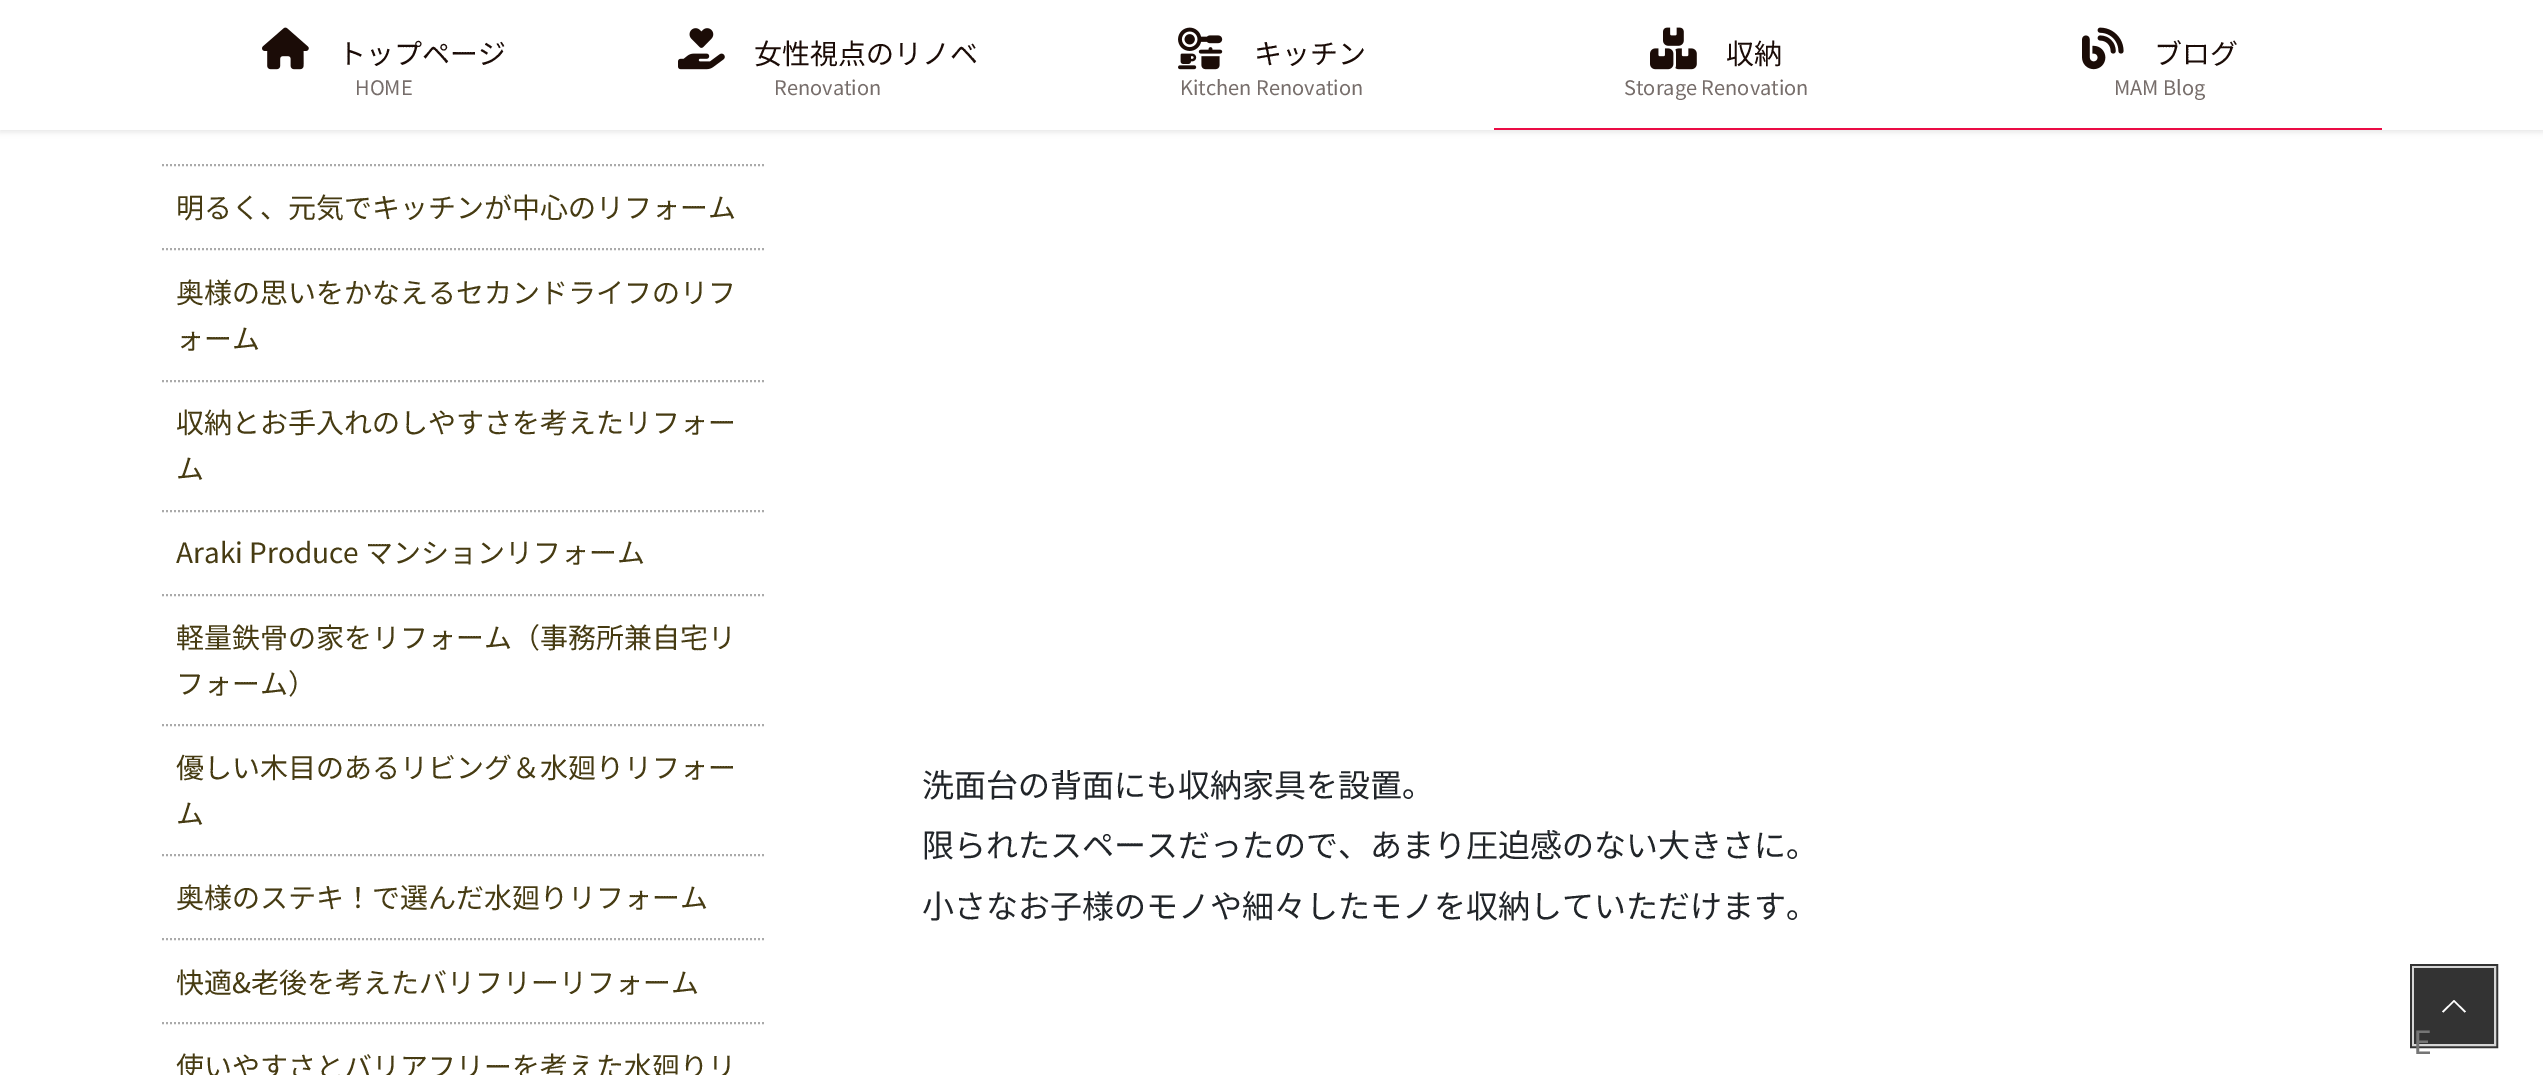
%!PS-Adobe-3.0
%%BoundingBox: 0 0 2543 1075
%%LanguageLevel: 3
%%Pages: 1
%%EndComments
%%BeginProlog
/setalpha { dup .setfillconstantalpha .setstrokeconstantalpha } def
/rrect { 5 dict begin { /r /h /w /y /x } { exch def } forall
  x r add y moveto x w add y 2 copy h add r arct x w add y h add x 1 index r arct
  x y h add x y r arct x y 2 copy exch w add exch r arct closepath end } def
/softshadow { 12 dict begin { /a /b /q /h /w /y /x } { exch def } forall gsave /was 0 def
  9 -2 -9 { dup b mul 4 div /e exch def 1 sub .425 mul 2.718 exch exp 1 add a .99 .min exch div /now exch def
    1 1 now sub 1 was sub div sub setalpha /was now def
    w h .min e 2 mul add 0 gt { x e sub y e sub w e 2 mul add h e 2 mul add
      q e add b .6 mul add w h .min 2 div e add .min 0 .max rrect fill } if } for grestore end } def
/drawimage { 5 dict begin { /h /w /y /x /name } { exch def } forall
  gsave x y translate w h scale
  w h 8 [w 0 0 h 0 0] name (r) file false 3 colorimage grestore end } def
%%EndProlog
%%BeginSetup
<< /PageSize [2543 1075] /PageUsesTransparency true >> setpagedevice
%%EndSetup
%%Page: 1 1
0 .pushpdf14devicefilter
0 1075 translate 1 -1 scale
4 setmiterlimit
1 setgray
0 0 2543 1075 rectfill
0 setgray
0 2 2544 130 0 3 0.1 softshadow
1 setgray
0 0 2543 130 rectfill
(images/1.raw) 262 27 47 43 drawimage
(images/2.raw) 678 28 47 42 drawimage
(images/3.raw) 1178 27 45 43 drawimage
(images/4.raw) 1650 27 47 43 drawimage
0.922 0.047 0.271 setrgbcolor
1494 128 888 2 rectfill
(images/5.raw) 2082 27 42 43 drawimage
0.667 setgray
2 setlinewidth
[2 2] 0 setdash
newpath 162 165 moveto 766 165 lineto stroke
newpath 162 249 moveto 766 249 lineto stroke
newpath 162 381 moveto 766 381 lineto stroke
newpath 162 511 moveto 766 511 lineto stroke
newpath 162 595 moveto 766 595 lineto stroke
newpath 162 725 moveto 766 725 lineto stroke
newpath 162 855 moveto 766 855 lineto stroke
newpath 162 939 moveto 766 939 lineto stroke
newpath 162 1023 moveto 766 1023 lineto stroke
0.2 setgray
4 setlinewidth
[] 0 setdash
2412 966 84 80 rectstroke
0.839 setgray
2 setlinewidth
2413 967 82 78 rectstroke
0.2 setgray
2414 968 80 76 rectfill
1 setgray
newpath 2466 1011.5 moveto 2464.5 1012.5 lineto 2454 1002 lineto 2443.5 1012.5 lineto 2442 1011.5 lineto 2454 1000 lineto closepath fill
/NotoSansJP-Regular [28 0 0 -28 0 0] selectfont
0.106 0.047 0.027 setrgbcolor
338 64 moveto (トップページ) show
/NotoSansJP-Regular [20 0 0 -20 0 0] selectfont
0.463 0.427 0.416 setrgbcolor
355 95 moveto (HOME) show
/NotoSansJP-Regular [28 0 0 -28 0 0] selectfont
0.106 0.047 0.027 setrgbcolor
754 64 moveto (女性視点のリノベ) show
/NotoSansJP-Regular [20 0 0 -20 0 0] selectfont
0.463 0.427 0.416 setrgbcolor
774 95 moveto (Renovation) show
/NotoSansJP-Regular [28 0 0 -28 0 0] selectfont
0.106 0.047 0.027 setrgbcolor
1254 64 moveto (キッチン) show
/NotoSansJP-Regular [20 0 0 -20 0 0] selectfont
0.463 0.427 0.416 setrgbcolor
1180 95 moveto (Kitchen Renovation) show
/NotoSansJP-Regular [28 0 0 -28 0 0] selectfont
0.106 0.047 0.027 setrgbcolor
1726 64 moveto (収納) show
/NotoSansJP-Regular [20 0 0 -20 0 0] selectfont
0.463 0.427 0.416 setrgbcolor
1624 95 moveto (Storage Renovation) show
/NotoSansJP-Regular [28 0 0 -28 0 0] selectfont
0.106 0.047 0.027 setrgbcolor
2154 64 moveto (ブログ) show
/NotoSansJP-Regular [20 0 0 -20 0 0] selectfont
0.463 0.427 0.416 setrgbcolor
2114 95 moveto (MAM Blog) show
/NotoSansJP-Regular [28 0 0 -28 0 0] selectfont
0.275 0.231 0.071 setrgbcolor
176 218 moveto (明るく、元気でキッチンが中心のリフォーム) show
176 303 moveto (奥様の思いをかなえるセカンドライフのリフ) show
176 349 moveto (ォーム) show
176 433 moveto (収納とお手入れのしやすさを考えたリフォー) show
176 479 moveto (ム) show
176 563 moveto (Araki Produce マンションリフォーム) show
176 648 moveto (軽量鉄骨の家をリフォーム（事務所兼自宅リ) show
176 694 moveto (フォーム）) show
176 778 moveto (優しい木目のあるリビング＆水廻りリフォー) show
176 824 moveto (ム) show
176 908 moveto (奥様のステキ！で選んだ水廻りリフォーム) show
176 993 moveto (快適&老後を考えたバリフリーリフォーム) show
176 1077 moveto (使いやすさとバリアフリーを考えた水廻りリ) show
/NotoSansJP-Regular [32 0 0 -32 0 0] selectfont
0.129 0.145 0.161 setrgbcolor
922 797 moveto (洗面台の背面にも収納家具を設置。) show
922 857 moveto (限られたスペースだったので、あまり圧迫感のない大きさに。) show
922 918 moveto (小さなお子様のモノや細々したモノを収納していただけます。) show
0.459 setgray
2413 1054 moveto (E) show
.poppdf14devicefilter showpage
%%EOF
